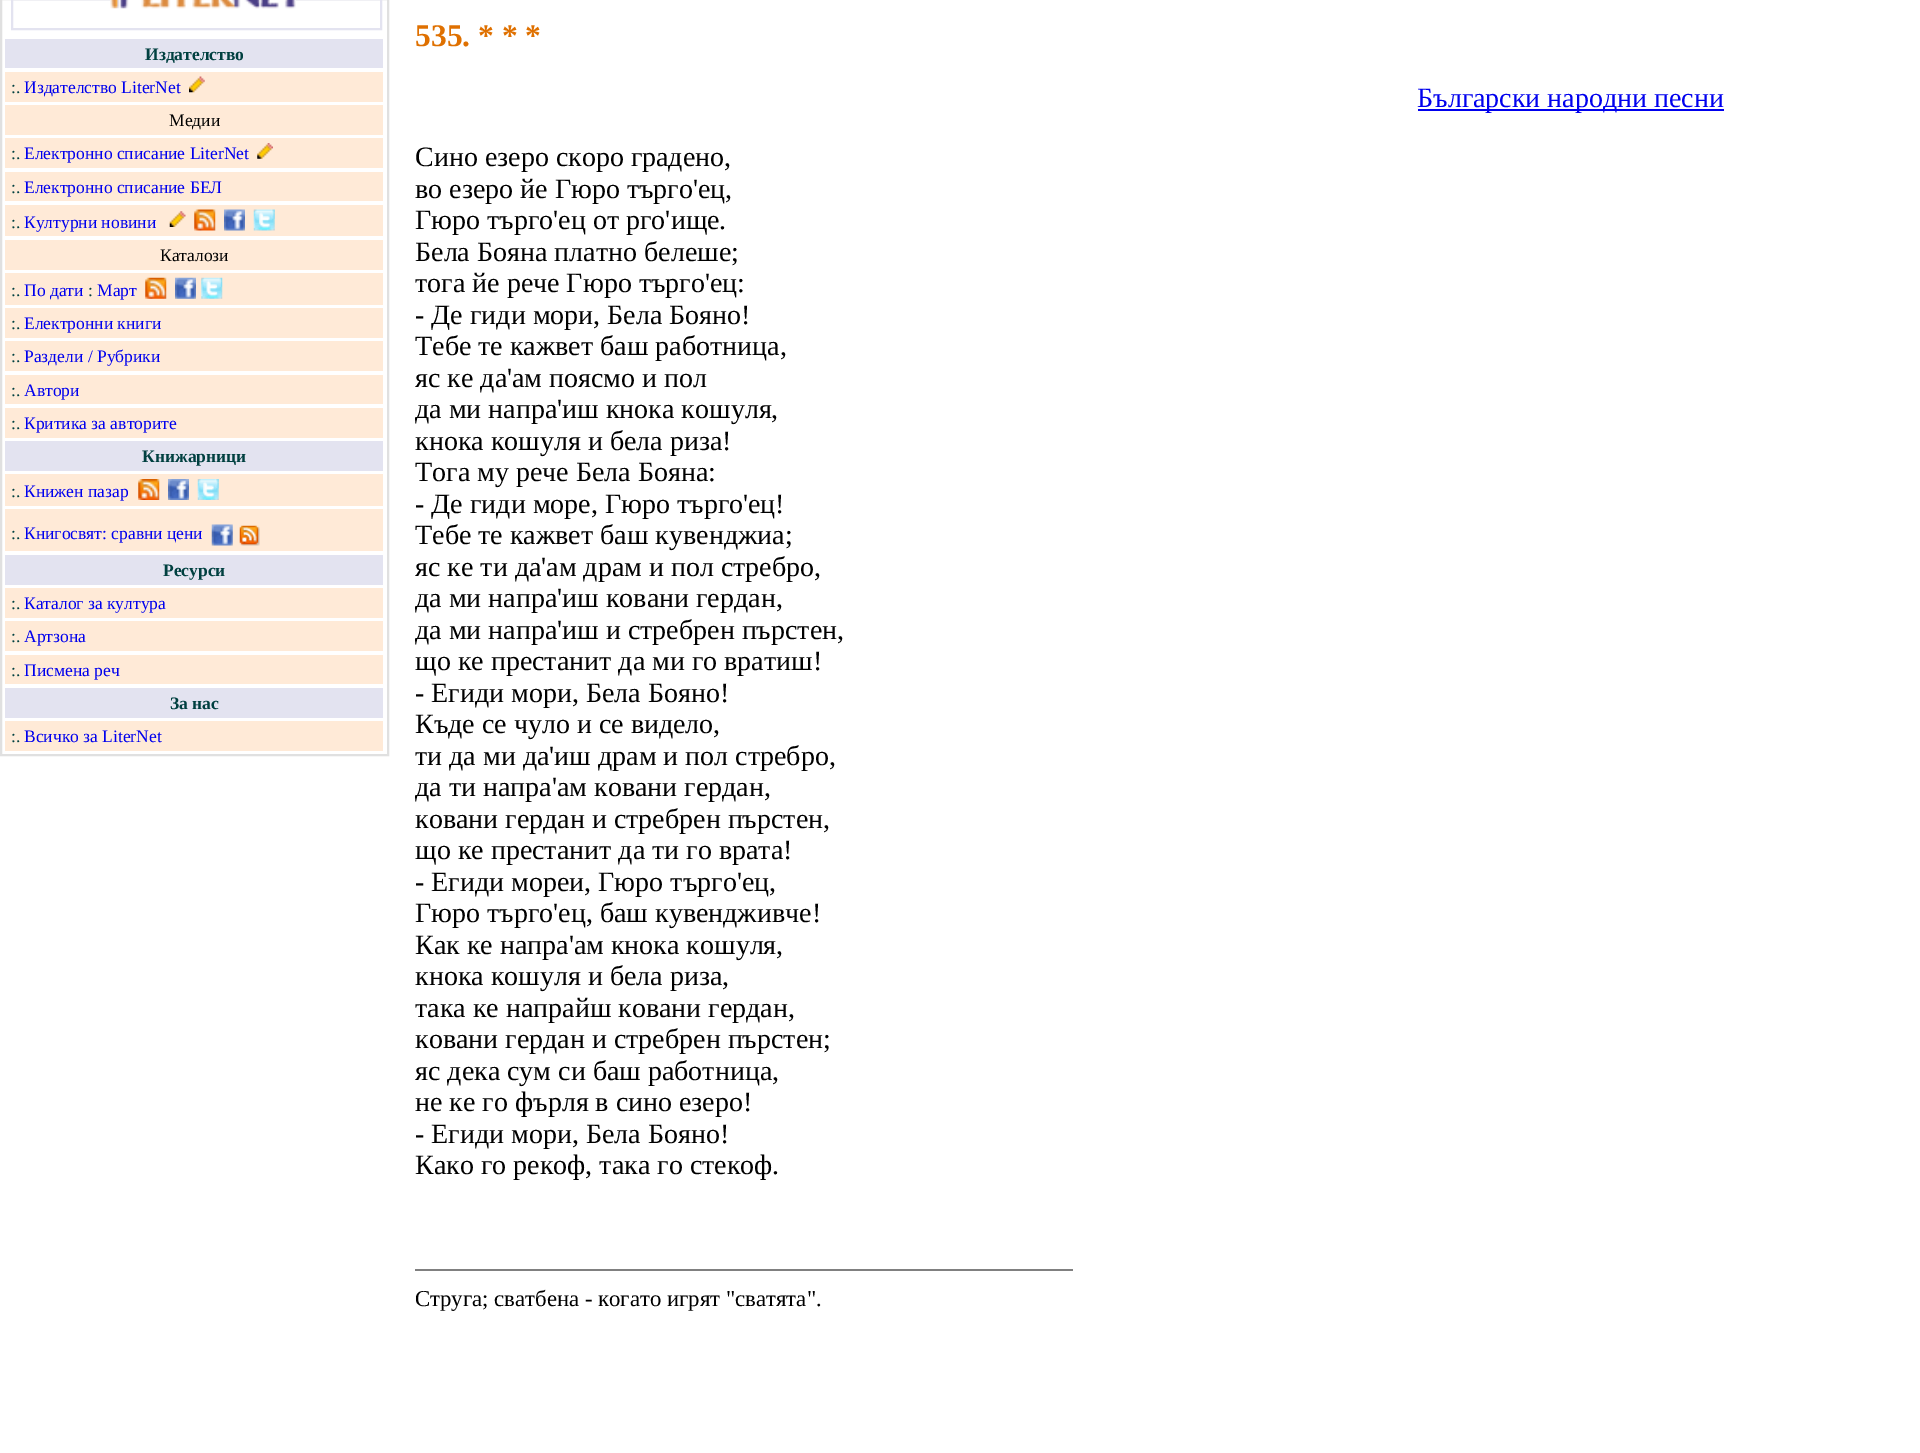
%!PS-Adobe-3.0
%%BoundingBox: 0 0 1920 1453
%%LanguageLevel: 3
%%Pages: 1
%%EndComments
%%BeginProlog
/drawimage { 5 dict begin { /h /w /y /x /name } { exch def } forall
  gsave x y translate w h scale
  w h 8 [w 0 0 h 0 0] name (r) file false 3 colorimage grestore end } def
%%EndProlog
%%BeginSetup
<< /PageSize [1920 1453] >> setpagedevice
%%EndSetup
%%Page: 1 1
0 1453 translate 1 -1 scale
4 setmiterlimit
1 setgray
0 0 1920 1453 rectfill
0.878 setgray
2 setlinewidth
1 -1 387 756 rectstroke
0.89 0.89 0.941 setrgbcolor
12 -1 369 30 rectstroke
(images/1.raw) 110 0 186 9 drawimage
5 39 378 29 rectfill
1 0.918 0.843 setrgbcolor
5 72 378 30 rectfill
(images/2.raw) 189 76 16 17 drawimage
5 105 378 30 rectfill
5 138 378 30 rectfill
(images/3.raw) 257 143 16 16 drawimage
5 172 378 29 rectfill
5 205 378 31 rectfill
(images/4.raw) 169 211 17 16 drawimage
(images/5.raw) 194 209 22 22 drawimage
(images/6.raw) 224 209 21 22 drawimage
(images/7.raw) 253 209 22 22 drawimage
5 240 378 30 rectfill
5 273 378 32 rectfill
(images/8.raw) 145 277 22 22 drawimage
(images/9.raw) 175 277 21 22 drawimage
(images/10.raw) 201 277 22 22 drawimage
5 308 378 30 rectfill
5 341 378 30 rectfill
5 375 378 29 rectfill
5 408 378 30 rectfill
0.89 0.89 0.941 setrgbcolor
5 441 378 30 rectfill
1 0.918 0.843 setrgbcolor
5 474 378 32 rectfill
(images/11.raw) 138 479 22 21 drawimage
(images/12.raw) 168 479 21 21 drawimage
(images/13.raw) 197 479 22 21 drawimage
5 509 378 42 rectfill
(images/14.raw) 211 524 22 22 drawimage
(images/15.raw) 239 525 21 21 drawimage
0.89 0.89 0.941 setrgbcolor
5 555 378 30 rectfill
1 0.918 0.843 setrgbcolor
5 588 378 30 rectfill
5 621 378 30 rectfill
5 655 378 29 rectfill
0.89 0.89 0.941 setrgbcolor
5 688 378 30 rectfill
1 0.918 0.843 setrgbcolor
5 721 378 30 rectfill
0 0 0.933 setrgbcolor
1418 109 306 2 rectfill
0.502 setgray
415 1269 658 2 rectfill
/LiberationSerif-Bold [17.5 0 0 -17.5 0 0] selectfont
0 0.251 0.251 setrgbcolor
145 60 moveto (Издателство) show
/LiberationSerif-Regular [17.5 0 0 -17.5 0 0] selectfont
11 93 moveto (:.) show
0 0 0.933 setrgbcolor
24 93 moveto (Издателство LiterNet) show
0 setgray
169 126 moveto (Медии) show
0 0.251 0.251 setrgbcolor
11 159 moveto (:.) show
0 0 0.933 setrgbcolor
24 159 moveto (Електронно списание LiterNet) show
0 0.251 0.251 setrgbcolor
11 193 moveto (:.) show
0 0 0.933 setrgbcolor
24 193 moveto (Електронно списание БЕЛ) show
0 0.251 0.251 setrgbcolor
11 228 moveto (:.) show
0 0 0.933 setrgbcolor
24 228 moveto (Културни новини) show
0 setgray
160 261 moveto (Каталози) show
0 0.251 0.251 setrgbcolor
11 296 moveto (:.) show
0 0 0.933 setrgbcolor
24 296 moveto (По дати) show
0 0.251 0.251 setrgbcolor
88 296 moveto (:) show
0 0 0.933 setrgbcolor
97 296 moveto (Март) show
0 0.251 0.251 setrgbcolor
11 329 moveto (:.) show
0 0 0.933 setrgbcolor
24 329 moveto (Електронни книги) show
0 0.251 0.251 setrgbcolor
11 362 moveto (:.) show
0 0 0.933 setrgbcolor
24 362 moveto (Раздели / Рубрики) show
0 0.251 0.251 setrgbcolor
11 396 moveto (:.) show
0 0 0.933 setrgbcolor
24 396 moveto (Автори) show
0 0.251 0.251 setrgbcolor
11 429 moveto (:.) show
0 0 0.933 setrgbcolor
24 429 moveto (Критика за авторите) show
/LiberationSerif-Bold [17.5 0 0 -17.5 0 0] selectfont
0 0.251 0.251 setrgbcolor
142 462 moveto (Книжарници) show
/LiberationSerif-Regular [17.5 0 0 -17.5 0 0] selectfont
11 497 moveto (:.) show
0 0 0.933 setrgbcolor
24 497 moveto (Книжен пазар) show
0 0.251 0.251 setrgbcolor
11 539 moveto (:.) show
0 0 0.933 setrgbcolor
24 539 moveto (Книгосвят: сравни цени) show
/LiberationSerif-Bold [17.5 0 0 -17.5 0 0] selectfont
0 0.251 0.251 setrgbcolor
163 576 moveto (Ресурси) show
/LiberationSerif-Regular [17.5 0 0 -17.5 0 0] selectfont
11 609 moveto (:.) show
0 0 0.933 setrgbcolor
24 609 moveto (Каталог за култура) show
0 0.251 0.251 setrgbcolor
11 642 moveto (:.) show
0 0 0.933 setrgbcolor
24 642 moveto (Артзона) show
0 0.251 0.251 setrgbcolor
11 676 moveto (:.) show
0 0 0.933 setrgbcolor
24 676 moveto (Писмена реч) show
/LiberationSerif-Bold [17.5 0 0 -17.5 0 0] selectfont
0 0.251 0.251 setrgbcolor
170 709 moveto (За нас) show
/LiberationSerif-Regular [17.5 0 0 -17.5 0 0] selectfont
11 742 moveto (:.) show
0 0 0.933 setrgbcolor
24 742 moveto (Всичко за LiterNet) show
/LiberationSerif-Bold [31.5 0 0 -31.5 0 0] selectfont
0.875 0.439 0 setrgbcolor
415 46 moveto (535. * * *) show
/LiberationSerif-Regular [28 0 0 -28 0 0] selectfont
0 0 0.933 setrgbcolor
1417 107 moveto (Български народни песни) show
0 setgray
415 166 moveto (Сино езеро скоро градено,) show
415 198 moveto (во езеро йе Гюро търго'ец,) show
415 229 moveto (Гюро търго'ец от рго'ище.) show
415 261 moveto (Бела Бояна платно белеше;) show
415 292 moveto (тога йе рече Гюро търго'ец:) show
415 324 moveto (- Де гиди мори, Бела Бояно!) show
415 355 moveto (Тебе те кажвет баш работница,) show
415 387 moveto (яс ке да'ам поясмо и пол) show
415 418 moveto (да ми напра'иш кнока кошуля,) show
415 450 moveto (кнока кошуля и бела риза!) show
415 481 moveto (Тога му рече Бела Бояна:) show
415 513 moveto (- Де гиди море, Гюро търго'ец!) show
415 544 moveto (Тебе те кажвет баш кувенджиа;) show
415 576 moveto (яс ке ти да'ам драм и пол стребро,) show
415 607 moveto (да ми напра'иш ковани гердан,) show
415 639 moveto (да ми напра'иш и стребрен пърстен,) show
415 670 moveto (що ке престанит да ми го вратиш!) show
415 702 moveto (- Егиди мори, Бела Бояно!) show
415 733 moveto (Къде се чуло и се видело,) show
415 765 moveto (ти да ми да'иш драм и пол стребро,) show
415 796 moveto (да ти напра'ам ковани гердан,) show
415 828 moveto (ковани гердан и стребрен пърстен,) show
415 859 moveto (що ке престанит да ти го врата!) show
415 891 moveto (- Егиди мореи, Гюро търго'ец,) show
415 922 moveto (Гюро търго'ец, баш кувендживче!) show
415 954 moveto (Как ке напра'ам кнока кошуля,) show
415 985 moveto (кнока кошуля и бела риза,) show
415 1017 moveto (така ке напрайш ковани гердан,) show
415 1048 moveto (ковани гердан и стребрен пърстен;) show
415 1080 moveto (яс дека сум си баш работница,) show
415 1111 moveto (не ке го фърля в сино езеро!) show
415 1143 moveto (- Егиди мори, Бела Бояно!) show
415 1174 moveto (Како го рекоф, така го стекоф.) show
/LiberationSerif-Regular [22.75 0 0 -22.75 0 0] selectfont
415 1306 moveto (Струга; сватбена - когато игрят "сватята".) show
showpage
%%EOF
